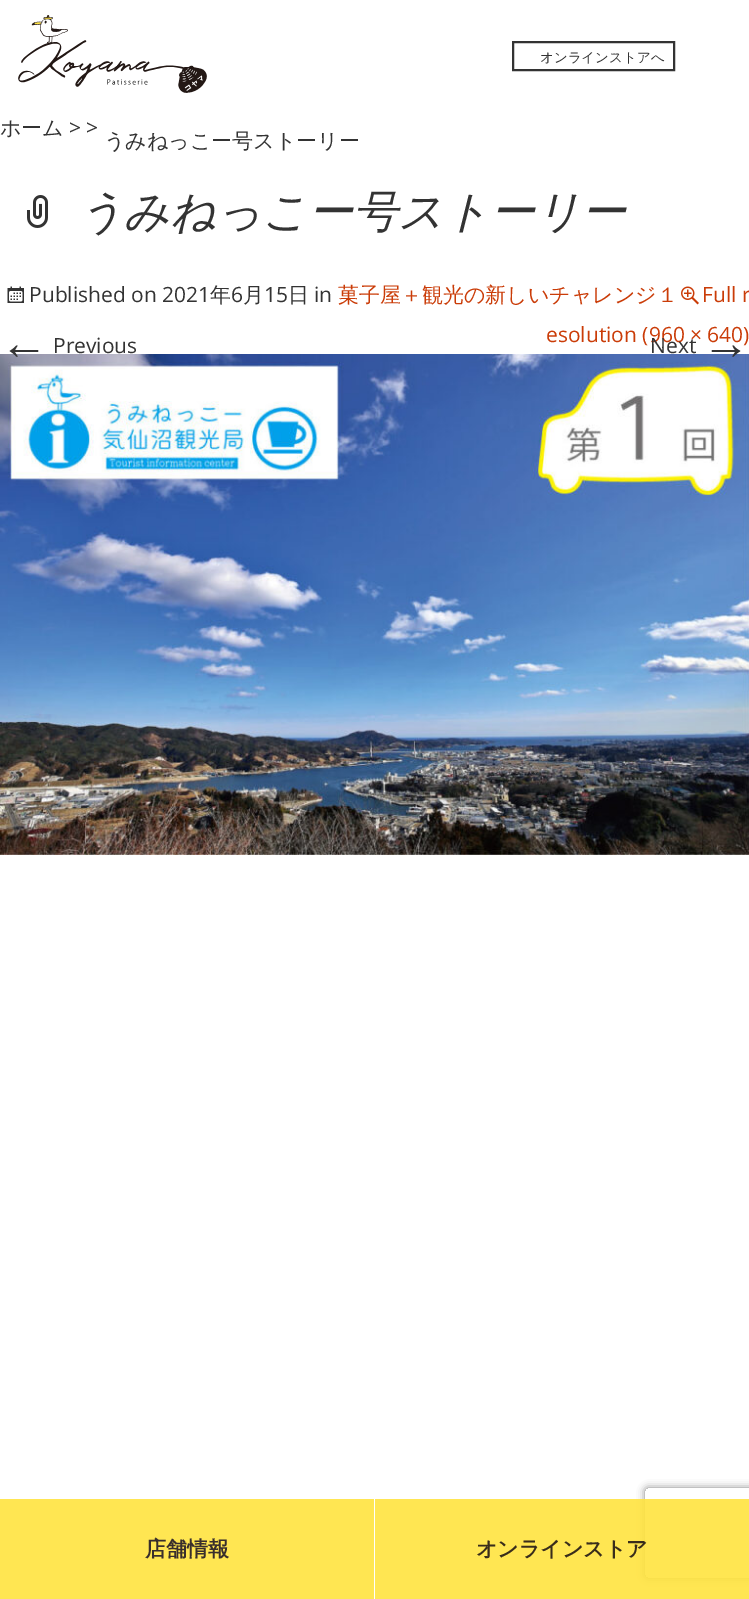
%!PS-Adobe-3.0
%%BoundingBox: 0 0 749 1599
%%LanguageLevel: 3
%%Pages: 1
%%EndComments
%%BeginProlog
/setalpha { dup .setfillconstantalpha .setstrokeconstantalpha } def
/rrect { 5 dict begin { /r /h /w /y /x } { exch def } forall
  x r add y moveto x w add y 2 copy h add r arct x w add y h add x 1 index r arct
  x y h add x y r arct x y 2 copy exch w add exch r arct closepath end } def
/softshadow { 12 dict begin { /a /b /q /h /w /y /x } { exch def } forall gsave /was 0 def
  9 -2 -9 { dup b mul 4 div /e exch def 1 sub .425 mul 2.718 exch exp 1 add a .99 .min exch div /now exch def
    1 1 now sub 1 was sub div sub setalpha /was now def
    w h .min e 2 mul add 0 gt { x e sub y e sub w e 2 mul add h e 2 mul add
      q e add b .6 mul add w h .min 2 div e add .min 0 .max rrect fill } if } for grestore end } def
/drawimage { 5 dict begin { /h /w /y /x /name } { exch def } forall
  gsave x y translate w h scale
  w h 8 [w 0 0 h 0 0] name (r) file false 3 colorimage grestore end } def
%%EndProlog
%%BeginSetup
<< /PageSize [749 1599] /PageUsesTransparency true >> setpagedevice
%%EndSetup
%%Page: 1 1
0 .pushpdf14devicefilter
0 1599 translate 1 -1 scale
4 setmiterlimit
1 setgray
0 0 749 1599 rectfill
(images/1.raw) 18 15 189 78 drawimage
0.2 setgray
2 setlinewidth
513 42 161 28 rectstroke
(images/2.raw) 27 195 21 33 drawimage
(images/3.raw) 7 286 17 17 drawimage
(images/4.raw) 681 286 18 19 drawimage
(images/5.raw) 0 354 749 501 drawimage
1 0.902 0.322 setrgbcolor
0 1499 374 100 rectfill
gsave
newpath 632 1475 moveto 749 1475 lineto 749 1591 lineto 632 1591 lineto closepath 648 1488 moveto 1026 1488 lineto 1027.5 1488 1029 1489.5 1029 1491 curveto 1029 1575 lineto 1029 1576.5 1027.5 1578 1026 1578 curveto 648 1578 lineto 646.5 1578 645 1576.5 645 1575 curveto 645 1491 lineto 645 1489.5 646.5 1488 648 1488 curveto closepath eoclip newpath
0.502 setgray
645 1488 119 90 3 4 1 softshadow
grestore
0.9 setalpha
1 0.89 0.247 setrgbcolor
375 1499 374 100 rectfill
/WenQuanYiZenHei-Medium [13.5 0 0 -13.5 0 0] selectfont
1 setalpha
0.2 setgray
540 62 moveto (オンラインストアへ) show
/WenQuanYiZenHei-Medium [21 0 0 -21 0 0] selectfont
0 135 moveto (ホーム) show
/OpenSans-Regular [21 0 0 -21 0 0] selectfont
69 135 moveto (> >) show
/WenQuanYiZenHei-Medium [21 0 0 -21 0 0] selectfont
104 148 moveto (うみねっこー号ストーリー) show
/WenQuanYiZenHei-MediumItalic [45 0 0 -45 0 0] selectfont
78 227 moveto (うみねっこー号ストーリー) show
/OpenSans-Regular [21 0 0 -21 0 0] selectfont
29 302 moveto (Published on 2021) show
/WenQuanYiZenHei-Medium [21 0 0 -21 0 0] selectfont
210 302 moveto (年) show
/OpenSans-Regular [21 0 0 -21 0 0] selectfont
231 302 moveto (6) show
/WenQuanYiZenHei-Medium [21 0 0 -21 0 0] selectfont
243 302 moveto (月) show
/OpenSans-Regular [21 0 0 -21 0 0] selectfont
264 302 moveto (15) show
/WenQuanYiZenHei-Medium [21 0 0 -21 0 0] selectfont
288 302 moveto (日) show
/OpenSans-Regular [21 0 0 -21 0 0] selectfont
314 302 moveto (in) show
/WenQuanYiZenHei-Medium [21 0 0 -21 0 0] selectfont
0.792 0.235 0.031 setrgbcolor
338 302 moveto (菓子屋＋観光の新しいチャレンジ１) show
/OpenSans-Regular [21 0 0 -21 0 0] selectfont
702 302 moveto (Full r) show
546 342 moveto (esolution \(960 × 640\)) show
/LiberationSans-Regular [48 0 0 -48 0 0] selectfont
0.2 setgray
0 359 moveto (←) show
/OpenSans-Regular [21 0 0 -21 0 0] selectfont
53 353 moveto (Previous) show
650 353 moveto (Next) show
/LiberationSans-Regular [48 0 0 -48 0 0] selectfont
702 359 moveto (→) show
/WenQuanYiZenHei-Bold [21 0 0 -21 0 0] selectfont
0.224 0.184 0.173 setrgbcolor
145 1556 moveto (店舗情報) show
0.224 0.176 0.106 setrgbcolor
476 1556 moveto (オンラインストア) show
.poppdf14devicefilter showpage
%%EOF
